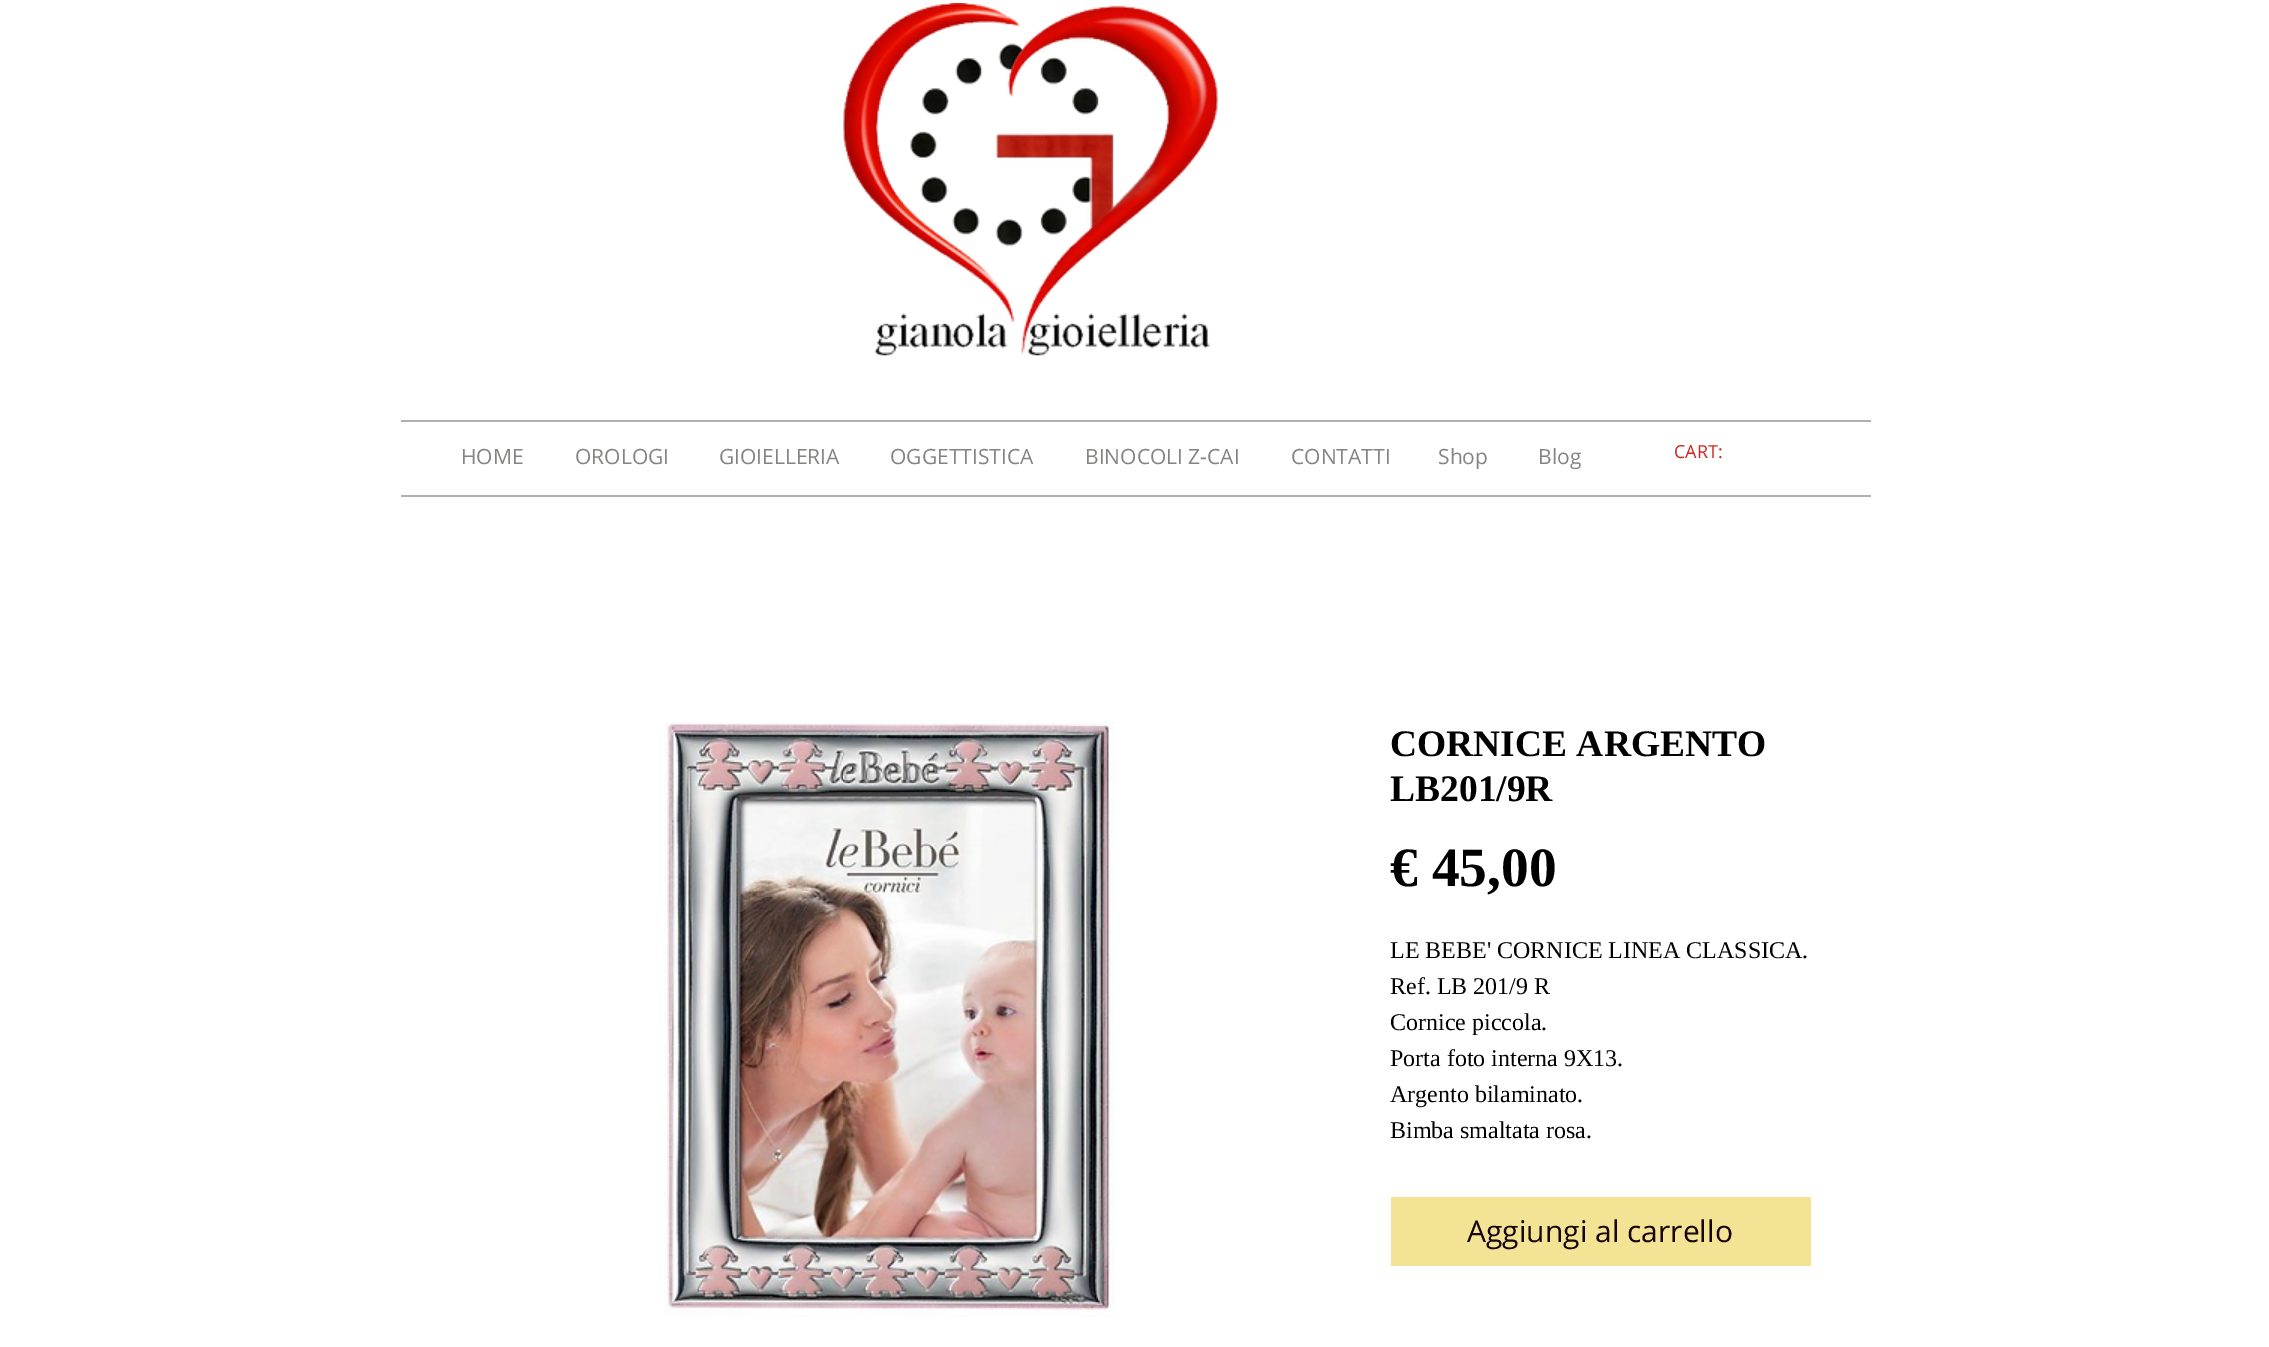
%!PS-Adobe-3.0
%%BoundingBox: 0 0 2269 1347
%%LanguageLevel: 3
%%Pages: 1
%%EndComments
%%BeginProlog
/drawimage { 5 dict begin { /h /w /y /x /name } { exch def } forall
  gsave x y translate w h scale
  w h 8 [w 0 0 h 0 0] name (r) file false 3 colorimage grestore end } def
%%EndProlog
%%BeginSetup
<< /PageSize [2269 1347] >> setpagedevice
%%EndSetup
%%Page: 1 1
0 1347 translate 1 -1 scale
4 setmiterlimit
1 setgray
0 0 2269 1347 rectfill
(images/1.raw) 843 3 375 353 drawimage
0.694 0.69 0.686 setrgbcolor
401 420 1470 2 rectfill
401 495 1470 2 rectfill
(images/2.raw) 664 722 451 595 drawimage
0.953 0.89 0.58 setrgbcolor
1391 1197 420 69 rectfill
/OpenSans-Regular [21 0 0 -21 0 0] selectfont
0.522 0.518 0.514 setrgbcolor
461 464 moveto (HOME) show
575 464 moveto (OROLOGI) show
719 464 moveto (GIOIELLERIA) show
890 464 moveto (OGGETTISTICA) show
1085 464 moveto (BINOCOLI Z-CAI) show
1291 464 moveto (CONTATTI) show
1438 464 moveto (Shop) show
1538 464 moveto (Blog) show
/OpenSans-Regular [18 0 0 -18 0 0] selectfont
0.808 0.149 0.129 setrgbcolor
1674 458 moveto (CART:) show
/LiberationSerif-Bold [37.5 0 0 -37.5 0 0] selectfont
0 setgray
1390 756 moveto (CORNICE ARGENTO) show
1390 801 moveto (LB201/9R) show
/LiberationSerif-Bold [55.5 0 0 -55.5 0 0] selectfont
1390 886 moveto (€ 45,00) show
/LiberationSerif-Regular [24 0 0 -24 0 0] selectfont
1390 958 moveto (LE BEBE' CORNICE LINEA CLASSICA.) show
1390 994 moveto (Ref. LB 201/9 R) show
gsave
1391 933 417 216 rectclip
1390 1030 moveto (Cornice piccola.) show
grestore
1390 1066 moveto (Porta foto interna 9X13.) show
1390 1102 moveto (Argento bilaminato.) show
1390 1138 moveto (Bimba smaltata rosa.) show
/OpenSans-Regular [30 0 0 -30 0 0] selectfont
0.09 0.016 0.016 setrgbcolor
1467 1242 moveto (Aggiungi al carrello) show
showpage
%%EOF
